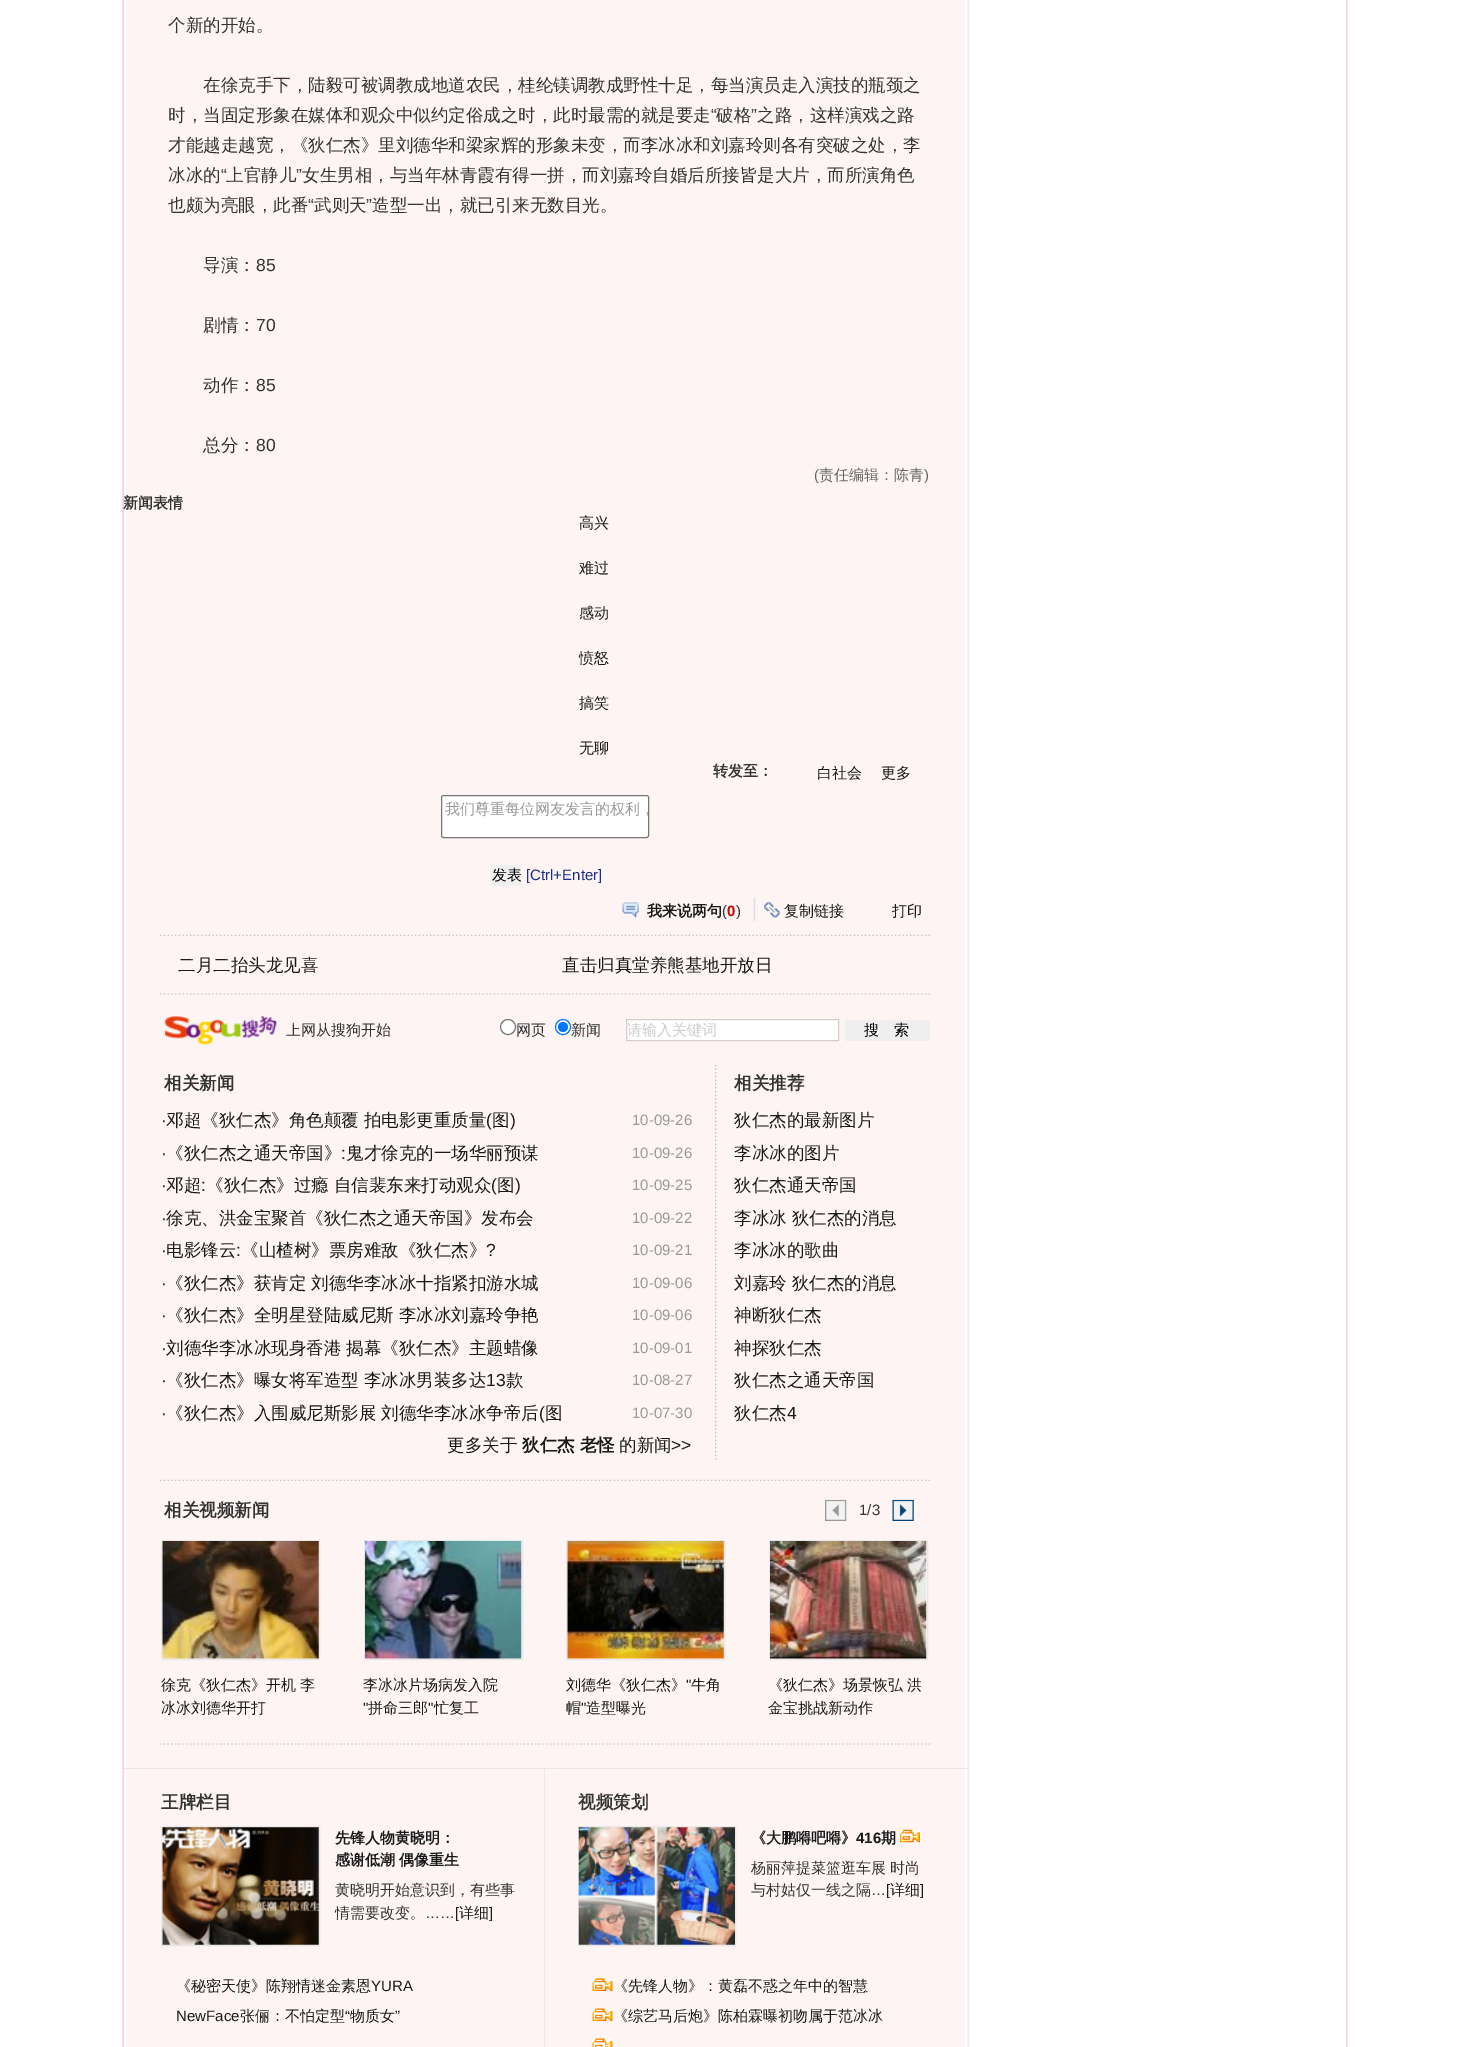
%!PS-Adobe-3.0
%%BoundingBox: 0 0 1469 2047
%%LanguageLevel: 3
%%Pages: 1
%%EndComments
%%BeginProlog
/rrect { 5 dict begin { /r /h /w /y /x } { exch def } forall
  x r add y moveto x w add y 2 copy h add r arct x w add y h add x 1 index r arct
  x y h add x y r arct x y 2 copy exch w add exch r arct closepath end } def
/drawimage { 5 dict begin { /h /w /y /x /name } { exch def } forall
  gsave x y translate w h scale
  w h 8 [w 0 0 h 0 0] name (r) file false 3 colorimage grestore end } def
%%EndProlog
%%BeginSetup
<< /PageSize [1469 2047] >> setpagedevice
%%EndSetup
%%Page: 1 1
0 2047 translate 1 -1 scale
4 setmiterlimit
1 setgray
0 0 1469 2047 rectfill
(images/1.raw) 122 0 1226 2047 drawimage
441.5 795.5 207 42 2 rrect gsave fill grestore
0.463 setgray
stroke
0.937 setgray
491 865 30 21 rectfill
(images/2.raw) 622 902 17 16 drawimage
(images/3.raw) 753 897 27 24 drawimage
(images/4.raw) 160 934 770 2 drawimage
(images/5.raw) 160 993 770 2 drawimage
(images/6.raw) 164 1015 113 30 drawimage
1 setgray
newpath 508 1027 7.5 0 360 arc closepath gsave fill grestore
0.463 setgray
stroke
1 setgray
newpath 563 1027 7.5 0 360 arc closepath gsave fill grestore
0 0.459 1 setrgbcolor
stroke
newpath 563 1027 5 0 360 arc closepath fill
1 setgray
newpath 626.5 1019.5 moveto 838.5 1019.5 lineto 838.5 1040.5 lineto 626.5 1040.5 lineto closepath gsave fill grestore
0.831 0.816 0.784 setrgbcolor
stroke
0.937 setgray
845 1020 85 21 rectfill
(images/7.raw) 715 1064 2 396 drawimage
(images/4.raw) 160 1479 770 2 drawimage
(images/8.raw) 825 1499 22 22 drawimage
(images/9.raw) 892 1499 22 22 drawimage
0.91 setgray
161.5 1540.5 158 119 rectstroke
(images/10.raw) 162 1541 157 118 drawimage
364.5 1540.5 158 119 rectstroke
(images/11.raw) 365 1541 157 118 drawimage
566.5 1540.5 158 119 rectstroke
(images/12.raw) 567 1541 157 118 drawimage
769.5 1540.5 158 119 rectstroke
(images/13.raw) 770 1541 157 118 drawimage
(images/5.raw) 160 1743 770 2 drawimage
124 1768 844 1 rectfill
161.5 1826.5 158 119 rectstroke
(images/14.raw) 162 1827 157 118 drawimage
544 1769 1 278 rectfill
578.5 1826.5 157 119 rectstroke
(images/15.raw) 578 1827 157 118 drawimage
(images/16.raw) 900 1829 20 14 drawimage
(images/17.raw) 592 1978 21 13 drawimage
(images/17.raw) 592 2008 21 13 drawimage
(images/18.raw) 592 2038 21 9 drawimage
/WenQuanYiZenHei-Medium [17.5 0 0 -17.5 0 0] selectfont
0.2 setgray
168 31 moveto (个新的开始。) show
203 91 moveto (在徐克手下，陆毅可被调教成地道农民，桂纶镁调教成野性十足，每当演员走入演技的瓶颈之) show
168 121 moveto (时，当固定形象在媒体和观众中似约定俗成之时，此时最需的就是要走) show
/LiberationSans-Regular [17.5 0 0 -17.5 0 0] selectfont
711 121 moveto (“) show
/WenQuanYiZenHei-Medium [17.5 0 0 -17.5 0 0] selectfont
716 121 moveto (破格) show
/LiberationSans-Regular [17.5 0 0 -17.5 0 0] selectfont
751 121 moveto (”) show
/WenQuanYiZenHei-Medium [17.5 0 0 -17.5 0 0] selectfont
757 121 moveto (之路，这样演戏之路) show
168 151 moveto (才能越走越宽，《狄仁杰》里刘德华和梁家辉的形象未变，而李冰冰和刘嘉玲则各有突破之处，李) show
168 181 moveto (冰冰的) show
/LiberationSans-Regular [17.5 0 0 -17.5 0 0] selectfont
221 181 moveto (“) show
/WenQuanYiZenHei-Medium [17.5 0 0 -17.5 0 0] selectfont
226 181 moveto (上官静儿) show
/LiberationSans-Regular [17.5 0 0 -17.5 0 0] selectfont
296 181 moveto (”) show
/WenQuanYiZenHei-Medium [17.5 0 0 -17.5 0 0] selectfont
302 181 moveto (女生男相，与当年林青霞有得一拼，而刘嘉玲自婚后所接皆是大片，而所演角色) show
168 211 moveto (也颇为亮眼，此番) show
/LiberationSans-Regular [17.5 0 0 -17.5 0 0] selectfont
308 211 moveto (“) show
/WenQuanYiZenHei-Medium [17.5 0 0 -17.5 0 0] selectfont
314 211 moveto (武则天) show
/LiberationSans-Regular [17.5 0 0 -17.5 0 0] selectfont
366 211 moveto (”) show
/WenQuanYiZenHei-Medium [17.5 0 0 -17.5 0 0] selectfont
372 211 moveto (造型一出，就已引来无数目光。) show
203 271 moveto (导演：) show
/LiberationSans-Regular [17.5 0 0 -17.5 0 0] selectfont
256 271 moveto (85) show
/WenQuanYiZenHei-Medium [17.5 0 0 -17.5 0 0] selectfont
203 331 moveto (剧情：) show
/LiberationSans-Regular [17.5 0 0 -17.5 0 0] selectfont
256 331 moveto (70) show
/WenQuanYiZenHei-Medium [17.5 0 0 -17.5 0 0] selectfont
203 391 moveto (动作：) show
/LiberationSans-Regular [17.5 0 0 -17.5 0 0] selectfont
256 391 moveto (85) show
/WenQuanYiZenHei-Medium [17.5 0 0 -17.5 0 0] selectfont
203 451 moveto (总分：) show
/LiberationSans-Regular [17.5 0 0 -17.5 0 0] selectfont
256 451 moveto (80) show
/LiberationSans-Regular [15 0 0 -15 0 0] selectfont
0.4 setgray
814 480 moveto (\() show
/WenQuanYiZenHei-Medium [15 0 0 -15 0 0] selectfont
819 480 moveto (责任编辑：陈青) show
/LiberationSans-Regular [15 0 0 -15 0 0] selectfont
924 480 moveto (\)) show
/WenQuanYiZenHei-Bold [15 0 0 -15 0 0] selectfont
0.2 setgray
123 508 moveto (新闻表情) show
/WenQuanYiZenHei-Medium [15 0 0 -15 0 0] selectfont
0.098 setgray
579 528 moveto (高兴) show
579 573 moveto (难过) show
579 618 moveto (感动) show
579 663 moveto (愤怒) show
579 708 moveto (搞笑) show
579 753 moveto (无聊) show
/WenQuanYiZenHei-Bold [15 0 0 -15 0 0] selectfont
0.2 setgray
713 776 moveto (转发至：) show
/WenQuanYiZenHei-Medium [15 0 0 -15 0 0] selectfont
0.098 setgray
817 778 moveto (白社会) show
881 778 moveto (更多) show
gsave
443 796 205 40 rectclip
0.6 setgray
445 814 moveto (我们尊重每位网友发言的权利，) show
grestore
0 setgray
492 880 moveto (发表) show
/LiberationSans-Regular [15 0 0 -15 0 0] selectfont
0.11 0.18 0.533 setrgbcolor
526 880 moveto ([Ctrl+Enter]) show
/WenQuanYiZenHei-Bold [15 0 0 -15 0 0] selectfont
0.098 setgray
647 916 moveto (我来说两句) show
/LiberationSans-Regular [15 0 0 -15 0 0] selectfont
0.2 setgray
722 916 moveto (\() show
/LiberationSans-Bold [15 0 0 -15 0 0] selectfont
0.8 0 0 setrgbcolor
727 916 moveto (0) show
/LiberationSans-Regular [15 0 0 -15 0 0] selectfont
0.2 setgray
736 916 moveto (\)) show
/WenQuanYiZenHei-Medium [15 0 0 -15 0 0] selectfont
0.098 setgray
784 916 moveto (复制链接) show
892 916 moveto (打印) show
/WenQuanYiZenHei-Medium [17.5 0 0 -17.5 0 0] selectfont
178 971 moveto (二月二抬头龙见喜) show
562 971 moveto (直击归真堂养熊基地开放日) show
/WenQuanYiZenHei-Medium [15 0 0 -15 0 0] selectfont
0.2 setgray
286 1035 moveto (上网从搜狗开始) show
516 1035 moveto (网页) show
571 1035 moveto (新闻) show
gsave
628 1020 210 20 rectclip
0.8 setgray
627 1035 moveto (请输入关键词) show
grestore
0 setgray
864 1035 moveto (搜　索) show
/WenQuanYiZenHei-Bold [17.5 0 0 -17.5 0 0] selectfont
0.2 setgray
164 1089 moveto (相关新闻) show
/LiberationSans-Regular [17.5 0 0 -17.5 0 0] selectfont
161 1126 moveto (·) show
/WenQuanYiZenHei-Medium [17.5 0 0 -17.5 0 0] selectfont
0.098 setgray
166 1126 moveto (邓超《狄仁杰》角色颠覆 拍电影更重质量) show
/LiberationSans-Regular [17.5 0 0 -17.5 0 0] selectfont
486 1126 moveto (\() show
/WenQuanYiZenHei-Medium [17.5 0 0 -17.5 0 0] selectfont
492 1126 moveto (图) show
/LiberationSans-Regular [17.5 0 0 -17.5 0 0] selectfont
510 1126 moveto (\)) show
/LiberationSans-Regular [15 0 0 -15 0 0] selectfont
0.6 setgray
632 1125 moveto (10-09-26) show
/LiberationSans-Regular [17.5 0 0 -17.5 0 0] selectfont
0.2 setgray
161 1159 moveto (·) show
/WenQuanYiZenHei-Medium [17.5 0 0 -17.5 0 0] selectfont
0.098 setgray
166 1159 moveto (《狄仁杰之通天帝国》) show
/LiberationSans-Regular [17.5 0 0 -17.5 0 0] selectfont
341 1159 moveto (:) show
/WenQuanYiZenHei-Medium [17.5 0 0 -17.5 0 0] selectfont
346 1159 moveto (鬼才徐克的一场华丽预谋) show
/LiberationSans-Regular [15 0 0 -15 0 0] selectfont
0.6 setgray
632 1158 moveto (10-09-26) show
/LiberationSans-Regular [17.5 0 0 -17.5 0 0] selectfont
0.2 setgray
161 1191 moveto (·) show
/WenQuanYiZenHei-Medium [17.5 0 0 -17.5 0 0] selectfont
0.098 setgray
166 1191 moveto (邓超) show
/LiberationSans-Regular [17.5 0 0 -17.5 0 0] selectfont
201 1191 moveto (:) show
/WenQuanYiZenHei-Medium [17.5 0 0 -17.5 0 0] selectfont
206 1191 moveto (《狄仁杰》过瘾 自信裴东来打动观众) show
/LiberationSans-Regular [17.5 0 0 -17.5 0 0] selectfont
491 1191 moveto (\() show
/WenQuanYiZenHei-Medium [17.5 0 0 -17.5 0 0] selectfont
497 1191 moveto (图) show
/LiberationSans-Regular [17.5 0 0 -17.5 0 0] selectfont
515 1191 moveto (\)) show
/LiberationSans-Regular [15 0 0 -15 0 0] selectfont
0.6 setgray
632 1190 moveto (10-09-25) show
/LiberationSans-Regular [17.5 0 0 -17.5 0 0] selectfont
0.2 setgray
161 1224 moveto (·) show
/WenQuanYiZenHei-Medium [17.5 0 0 -17.5 0 0] selectfont
0.098 setgray
166 1224 moveto (徐克、洪金宝聚首《狄仁杰之通天帝国》发布会) show
/LiberationSans-Regular [15 0 0 -15 0 0] selectfont
0.6 setgray
632 1223 moveto (10-09-22) show
/LiberationSans-Regular [17.5 0 0 -17.5 0 0] selectfont
0.2 setgray
161 1256 moveto (·) show
/WenQuanYiZenHei-Medium [17.5 0 0 -17.5 0 0] selectfont
0.098 setgray
166 1256 moveto (电影锋云) show
/LiberationSans-Regular [17.5 0 0 -17.5 0 0] selectfont
236 1256 moveto (:) show
/WenQuanYiZenHei-Medium [17.5 0 0 -17.5 0 0] selectfont
241 1256 moveto (《山楂树》票房难敌《狄仁杰》) show
/LiberationSans-Regular [17.5 0 0 -17.5 0 0] selectfont
486 1256 moveto (?) show
/LiberationSans-Regular [15 0 0 -15 0 0] selectfont
0.6 setgray
632 1255 moveto (10-09-21) show
/LiberationSans-Regular [17.5 0 0 -17.5 0 0] selectfont
0.2 setgray
161 1289 moveto (·) show
/WenQuanYiZenHei-Medium [17.5 0 0 -17.5 0 0] selectfont
0.098 setgray
166 1289 moveto (《狄仁杰》获肯定 刘德华李冰冰十指紧扣游水城) show
/LiberationSans-Regular [15 0 0 -15 0 0] selectfont
0.6 setgray
632 1288 moveto (10-09-06) show
/LiberationSans-Regular [17.5 0 0 -17.5 0 0] selectfont
0.2 setgray
161 1321 moveto (·) show
/WenQuanYiZenHei-Medium [17.5 0 0 -17.5 0 0] selectfont
0.098 setgray
166 1321 moveto (《狄仁杰》全明星登陆威尼斯 李冰冰刘嘉玲争艳) show
/LiberationSans-Regular [15 0 0 -15 0 0] selectfont
0.6 setgray
632 1320 moveto (10-09-06) show
/LiberationSans-Regular [17.5 0 0 -17.5 0 0] selectfont
0.2 setgray
161 1354 moveto (·) show
/WenQuanYiZenHei-Medium [17.5 0 0 -17.5 0 0] selectfont
0.098 setgray
166 1354 moveto (刘德华李冰冰现身香港 揭幕《狄仁杰》主题蜡像) show
/LiberationSans-Regular [15 0 0 -15 0 0] selectfont
0.6 setgray
632 1353 moveto (10-09-01) show
/LiberationSans-Regular [17.5 0 0 -17.5 0 0] selectfont
0.2 setgray
161 1386 moveto (·) show
/WenQuanYiZenHei-Medium [17.5 0 0 -17.5 0 0] selectfont
0.098 setgray
166 1386 moveto (《狄仁杰》曝女将军造型 李冰冰男装多达) show
/LiberationSans-Regular [17.5 0 0 -17.5 0 0] selectfont
486 1386 moveto (13) show
/WenQuanYiZenHei-Medium [17.5 0 0 -17.5 0 0] selectfont
506 1386 moveto (款) show
/LiberationSans-Regular [15 0 0 -15 0 0] selectfont
0.6 setgray
632 1385 moveto (10-08-27) show
/LiberationSans-Regular [17.5 0 0 -17.5 0 0] selectfont
0.2 setgray
161 1419 moveto (·) show
/WenQuanYiZenHei-Medium [17.5 0 0 -17.5 0 0] selectfont
0.098 setgray
166 1419 moveto (《狄仁杰》入围威尼斯影展 刘德华李冰冰争帝后) show
/LiberationSans-Regular [17.5 0 0 -17.5 0 0] selectfont
539 1419 moveto (\() show
/WenQuanYiZenHei-Medium [17.5 0 0 -17.5 0 0] selectfont
545 1419 moveto (图) show
/LiberationSans-Regular [15 0 0 -15 0 0] selectfont
0.6 setgray
632 1418 moveto (10-07-30) show
/WenQuanYiZenHei-Medium [17.5 0 0 -17.5 0 0] selectfont
0.098 setgray
447 1451 moveto (更多关于) show
/WenQuanYiZenHei-Bold [17.5 0 0 -17.5 0 0] selectfont
522 1451 moveto (狄仁杰 老怪) show
/WenQuanYiZenHei-Medium [17.5 0 0 -17.5 0 0] selectfont
619 1451 moveto (的新闻) show
/LiberationSans-Regular [17.5 0 0 -17.5 0 0] selectfont
671 1451 moveto (>>) show
/WenQuanYiZenHei-Bold [17.5 0 0 -17.5 0 0] selectfont
0.2 setgray
734 1089 moveto (相关推荐) show
/WenQuanYiZenHei-Medium [17.5 0 0 -17.5 0 0] selectfont
0.098 setgray
734 1126 moveto (狄仁杰的最新图片) show
734 1159 moveto (李冰冰的图片) show
734 1191 moveto (狄仁杰通天帝国) show
734 1224 moveto (李冰冰 狄仁杰的消息) show
734 1256 moveto (李冰冰的歌曲) show
734 1289 moveto (刘嘉玲 狄仁杰的消息) show
734 1321 moveto (神断狄仁杰) show
734 1354 moveto (神探狄仁杰) show
734 1386 moveto (狄仁杰之通天帝国) show
734 1419 moveto (狄仁杰) show
/LiberationSans-Regular [17.5 0 0 -17.5 0 0] selectfont
787 1419 moveto (4) show
/WenQuanYiZenHei-Bold [17.5 0 0 -17.5 0 0] selectfont
0.2 setgray
164 1516 moveto (相关视频新闻) show
/LiberationSans-Regular [15 0 0 -15 0 0] selectfont
859 1515 moveto (1/3) show
/WenQuanYiZenHei-Medium [15 0 0 -15 0 0] selectfont
0.098 setgray
161 1690 moveto (徐克《狄仁杰》开机 李) show
161 1713 moveto (冰冰刘德华开打) show
363 1690 moveto (李冰冰片场病发入院) show
/LiberationSans-Regular [15 0 0 -15 0 0] selectfont
363 1713 moveto (") show
/WenQuanYiZenHei-Medium [15 0 0 -15 0 0] selectfont
368 1713 moveto (拼命三郎) show
/LiberationSans-Regular [15 0 0 -15 0 0] selectfont
428 1713 moveto (") show
/WenQuanYiZenHei-Medium [15 0 0 -15 0 0] selectfont
434 1713 moveto (忙复工) show
566 1690 moveto (刘德华《狄仁杰》) show
/LiberationSans-Regular [15 0 0 -15 0 0] selectfont
686 1690 moveto (") show
/WenQuanYiZenHei-Medium [15 0 0 -15 0 0] selectfont
691 1690 moveto (牛角) show
566 1713 moveto (帽) show
/LiberationSans-Regular [15 0 0 -15 0 0] selectfont
581 1713 moveto (") show
/WenQuanYiZenHei-Medium [15 0 0 -15 0 0] selectfont
586 1713 moveto (造型曝光) show
768 1690 moveto (《狄仁杰》场景恢弘 洪) show
768 1713 moveto (金宝挑战新动作) show
/WenQuanYiZenHei-Bold [17.5 0 0 -17.5 0 0] selectfont
0.2 setgray
161 1808 moveto (王牌栏目) show
/WenQuanYiZenHei-Bold [15 0 0 -15 0 0] selectfont
0.098 setgray
335 1843 moveto (先锋人物黄晓明：) show
335 1865 moveto (感谢低潮 偶像重生) show
/WenQuanYiZenHei-Medium [15 0 0 -15 0 0] selectfont
0.2 setgray
335 1895 moveto (黄晓明开始意识到，有些事) show
335 1918 moveto (情需要改变。) show
/LiberationSans-Regular [15 0 0 -15 0 0] selectfont
425 1918 moveto (……) show
0.098 setgray
455 1918 moveto ([) show
/WenQuanYiZenHei-Medium [15 0 0 -15 0 0] selectfont
459 1918 moveto (详细) show
/LiberationSans-Regular [15 0 0 -15 0 0] selectfont
489 1918 moveto (]) show
/WenQuanYiZenHei-Medium [15 0 0 -15 0 0] selectfont
176 1991 moveto (《秘密天使》陈翔情迷金素恩) show
/LiberationSans-Regular [15 0 0 -15 0 0] selectfont
371 1991 moveto (YURA) show
176 2021 moveto (NewFace) show
/WenQuanYiZenHei-Medium [15 0 0 -15 0 0] selectfont
240 2021 moveto (张俪：不怕定型) show
/LiberationSans-Regular [15 0 0 -15 0 0] selectfont
345 2021 moveto (“) show
/WenQuanYiZenHei-Medium [15 0 0 -15 0 0] selectfont
350 2021 moveto (物质女) show
/LiberationSans-Regular [15 0 0 -15 0 0] selectfont
395 2021 moveto (”) show
/WenQuanYiZenHei-Bold [17.5 0 0 -17.5 0 0] selectfont
0.2 setgray
578 1808 moveto (视频策划) show
/WenQuanYiZenHei-Bold [15 0 0 -15 0 0] selectfont
0.098 setgray
751 1843 moveto (《大鹏嘚吧嘚》) show
/LiberationSans-Bold [15 0 0 -15 0 0] selectfont
856 1843 moveto (416) show
/WenQuanYiZenHei-Bold [15 0 0 -15 0 0] selectfont
881 1843 moveto (期) show
/WenQuanYiZenHei-Medium [15 0 0 -15 0 0] selectfont
0.2 setgray
751 1873 moveto (杨丽萍提菜篮逛车展 时尚) show
751 1895 moveto (与村姑仅一线之隔) show
/LiberationSans-Regular [15 0 0 -15 0 0] selectfont
871 1895 moveto (…) show
0.098 setgray
886 1895 moveto ([) show
/WenQuanYiZenHei-Medium [15 0 0 -15 0 0] selectfont
890 1895 moveto (详细) show
/LiberationSans-Regular [15 0 0 -15 0 0] selectfont
920 1895 moveto (]) show
/WenQuanYiZenHei-Medium [15 0 0 -15 0 0] selectfont
613 1991 moveto (《先锋人物》：黄磊不惑之年中的智慧) show
613 2021 moveto (《综艺马后炮》陈柏霖曝初吻属于范冰冰) show
showpage
%%EOF
